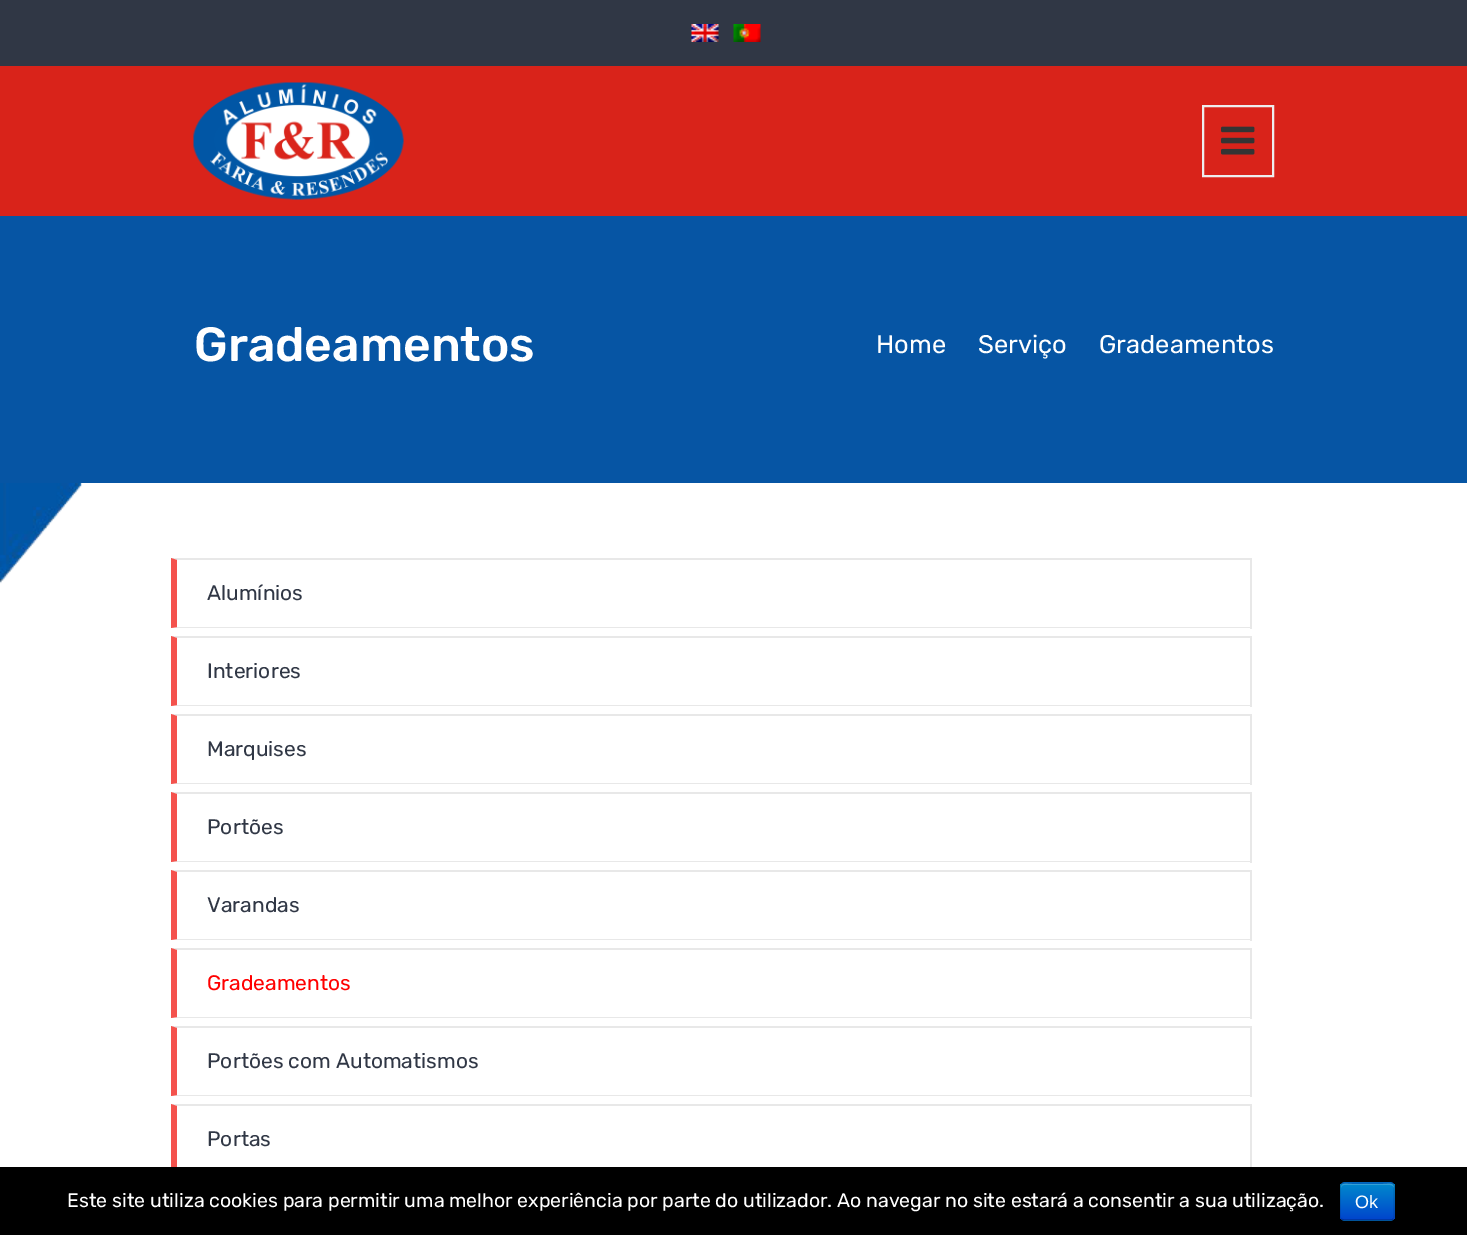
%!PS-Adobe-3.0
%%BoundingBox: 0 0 1467 1235
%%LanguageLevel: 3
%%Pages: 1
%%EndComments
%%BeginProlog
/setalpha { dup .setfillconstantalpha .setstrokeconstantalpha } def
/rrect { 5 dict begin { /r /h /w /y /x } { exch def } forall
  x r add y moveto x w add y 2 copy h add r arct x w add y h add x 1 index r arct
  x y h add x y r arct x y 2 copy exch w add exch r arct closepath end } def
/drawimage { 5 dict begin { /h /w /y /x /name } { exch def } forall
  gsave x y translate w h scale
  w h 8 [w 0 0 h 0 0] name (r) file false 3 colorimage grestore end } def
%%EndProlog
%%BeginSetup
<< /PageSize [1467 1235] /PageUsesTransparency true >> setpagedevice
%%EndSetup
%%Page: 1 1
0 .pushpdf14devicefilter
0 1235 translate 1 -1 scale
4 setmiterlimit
1 setgray
0 0 1467 1235 rectfill
0.851 0.137 0.102 setrgbcolor
0 66 1467 150 rectfill
0.188 0.216 0.271 setrgbcolor
0 0 1467 66 rectfill
(images/1.raw) 691 24 28 18 drawimage
(images/2.raw) 733 24 28 18 drawimage
(images/3.raw) 193 82 211 118 drawimage
0.933 setgray
2 setlinewidth
1203 106 70 70 rectstroke
(images/4.raw) 1221 126 34 29 drawimage
0.024 0.333 0.643 setrgbcolor
0 216 1467 267 rectfill
(images/5.raw) 0 483 82 101 drawimage
0.91 setgray
newpath 171 558 moveto 1251 558 lineto 1250 560 lineto 177 560 lineto closepath fill
1250 558 2 71 rectfill
newpath 1251 628 moveto 171 628 lineto 177 627 lineto 1250 627 lineto closepath fill
0.957 0.322 0.302 setrgbcolor
newpath 171 628 moveto 171 558 lineto 177 560 lineto 177 627 lineto closepath fill
0.91 setgray
newpath 171 636 moveto 1251 636 lineto 1250 638 lineto 177 638 lineto closepath fill
1250 636 2 71 rectfill
newpath 1251 706 moveto 171 706 lineto 177 705 lineto 1250 705 lineto closepath fill
0.957 0.322 0.302 setrgbcolor
newpath 171 706 moveto 171 636 lineto 177 638 lineto 177 705 lineto closepath fill
0.91 setgray
newpath 171 714 moveto 1251 714 lineto 1250 716 lineto 177 716 lineto closepath fill
1250 714 2 71 rectfill
newpath 1251 784 moveto 171 784 lineto 177 783 lineto 1250 783 lineto closepath fill
0.957 0.322 0.302 setrgbcolor
newpath 171 784 moveto 171 714 lineto 177 716 lineto 177 783 lineto closepath fill
0.91 setgray
newpath 171 792 moveto 1251 792 lineto 1250 794 lineto 177 794 lineto closepath fill
1250 792 2 71 rectfill
newpath 1251 862 moveto 171 862 lineto 177 861 lineto 1250 861 lineto closepath fill
0.957 0.322 0.302 setrgbcolor
newpath 171 862 moveto 171 792 lineto 177 794 lineto 177 861 lineto closepath fill
0.91 setgray
newpath 171 870 moveto 1251 870 lineto 1250 872 lineto 177 872 lineto closepath fill
1250 870 2 71 rectfill
newpath 1251 940 moveto 171 940 lineto 177 939 lineto 1250 939 lineto closepath fill
0.957 0.322 0.302 setrgbcolor
newpath 171 940 moveto 171 870 lineto 177 872 lineto 177 939 lineto closepath fill
0.91 setgray
newpath 171 948 moveto 1251 948 lineto 1250 950 lineto 177 950 lineto closepath fill
1250 948 2 71 rectfill
newpath 1251 1018 moveto 171 1018 lineto 177 1017 lineto 1250 1017 lineto closepath fill
0.957 0.322 0.302 setrgbcolor
newpath 171 1018 moveto 171 948 lineto 177 950 lineto 177 1017 lineto closepath fill
0.91 setgray
newpath 171 1026 moveto 1251 1026 lineto 1250 1028 lineto 177 1028 lineto closepath fill
1250 1026 2 71 rectfill
newpath 1251 1096 moveto 171 1096 lineto 177 1095 lineto 1250 1095 lineto closepath fill
0.957 0.322 0.302 setrgbcolor
newpath 171 1096 moveto 171 1026 lineto 177 1028 lineto 177 1095 lineto closepath fill
0.91 setgray
newpath 171 1104 moveto 1251 1104 lineto 1250 1106 lineto 177 1106 lineto closepath fill
1250 1104 2 71 rectfill
0.957 0.322 0.302 setrgbcolor
newpath 171 1174 moveto 171 1104 lineto 177 1106 lineto 177 1173 lineto closepath fill
0 setgray
0 1167 1467 68 rectfill
0 0.427 0.8 setrgbcolor
1340 1182 55 39 5 rrect fill
gsave
1340 1182 55 39 5 rrect clip newpath
gsave newpath 1340 1184 moveto 1395 1184 lineto 1395 1220 lineto 1340 1220 lineto closepath clip newpath
<< /ShadingType 2 /ColorSpace /DeviceRGB /Coords [1367 1184 1367 1220] /Extend [true true] /Function << /FunctionType 2 /Domain [0 1] /C0 [0 0.533 0.8] /C1 [0 0.267 0.8] /N 1 >> >> shfill grestore
grestore
0.2 0.624 0.839 setrgbcolor
newpath 1344 1185 moveto 1390 1185 lineto 1392 1185 1394 1186 1394 1188 curveto 1394 1182 1388 1184 1383 1184 curveto 1352 1184 lineto 1347 1184 1341 1182 1341 1188 curveto 1341 1186 1342 1185 1344 1185 curveto closepath fill
0.25 setalpha
0 setgray
1.5 setlinewidth
newpath 1393 1219 moveto 1392.5 1220 1391.5 1220 1390.5 1220 curveto 1344 1220 lineto 1343 1220 1342 1220 1341.5 1219 curveto stroke
0.1 setalpha
newpath 1341.5 1219 moveto 1340.5 1218.5 1340 1217.5 1340 1216.5 curveto 1340 1186.5 lineto 1340 1185.5 1340.5 1184.5 1341.5 1184 curveto 1342 1183 1343 1183 1344 1183 curveto 1390.5 1183 lineto 1391.5 1183 1392.5 1183 1393 1184 curveto 1394 1184.5 1394 1185.5 1394 1186.5 curveto 1394 1216.5 lineto 1394 1217.5 1394 1218.5 1393 1219 curveto stroke
/Rubik-Medium [48 0 0 -48 0 0] selectfont
1 setalpha
1 setgray
194 361 moveto (Gradeamentos) show
/Rubik-Regular [25.5 0 0 -25.5 0 0] selectfont
876 353 moveto (Home) show
978 353 moveto (Serviço) show
1099 353 moveto (Gradeamentos) show
/Rubik-Regular [21 0 0 -21 0 0] selectfont
0.188 0.216 0.271 setrgbcolor
207 600 moveto (Alumínios) show
207 678 moveto (Interiores) show
207 756 moveto (Marquises) show
207 834 moveto (Portões) show
207 912 moveto (Varandas) show
1 0 0 setrgbcolor
207 990 moveto (Gradeamentos) show
0.188 0.216 0.271 setrgbcolor
207 1068 moveto (Portões com Automatismos) show
207 1146 moveto (Portas) show
/Rubik-Regular [19.5 0 0 -19.5 0 0] selectfont
1 setgray
67 1207 moveto (Este site utiliza cookies para permitir uma melhor experiência por parte do utilizador. Ao navegar no site estará a consentir a sua utilização.) show
/LiberationSans-Regular [18 0 0 -18 0 0] selectfont
1355 1208 moveto (Ok) show
.poppdf14devicefilter showpage
%%EOF
